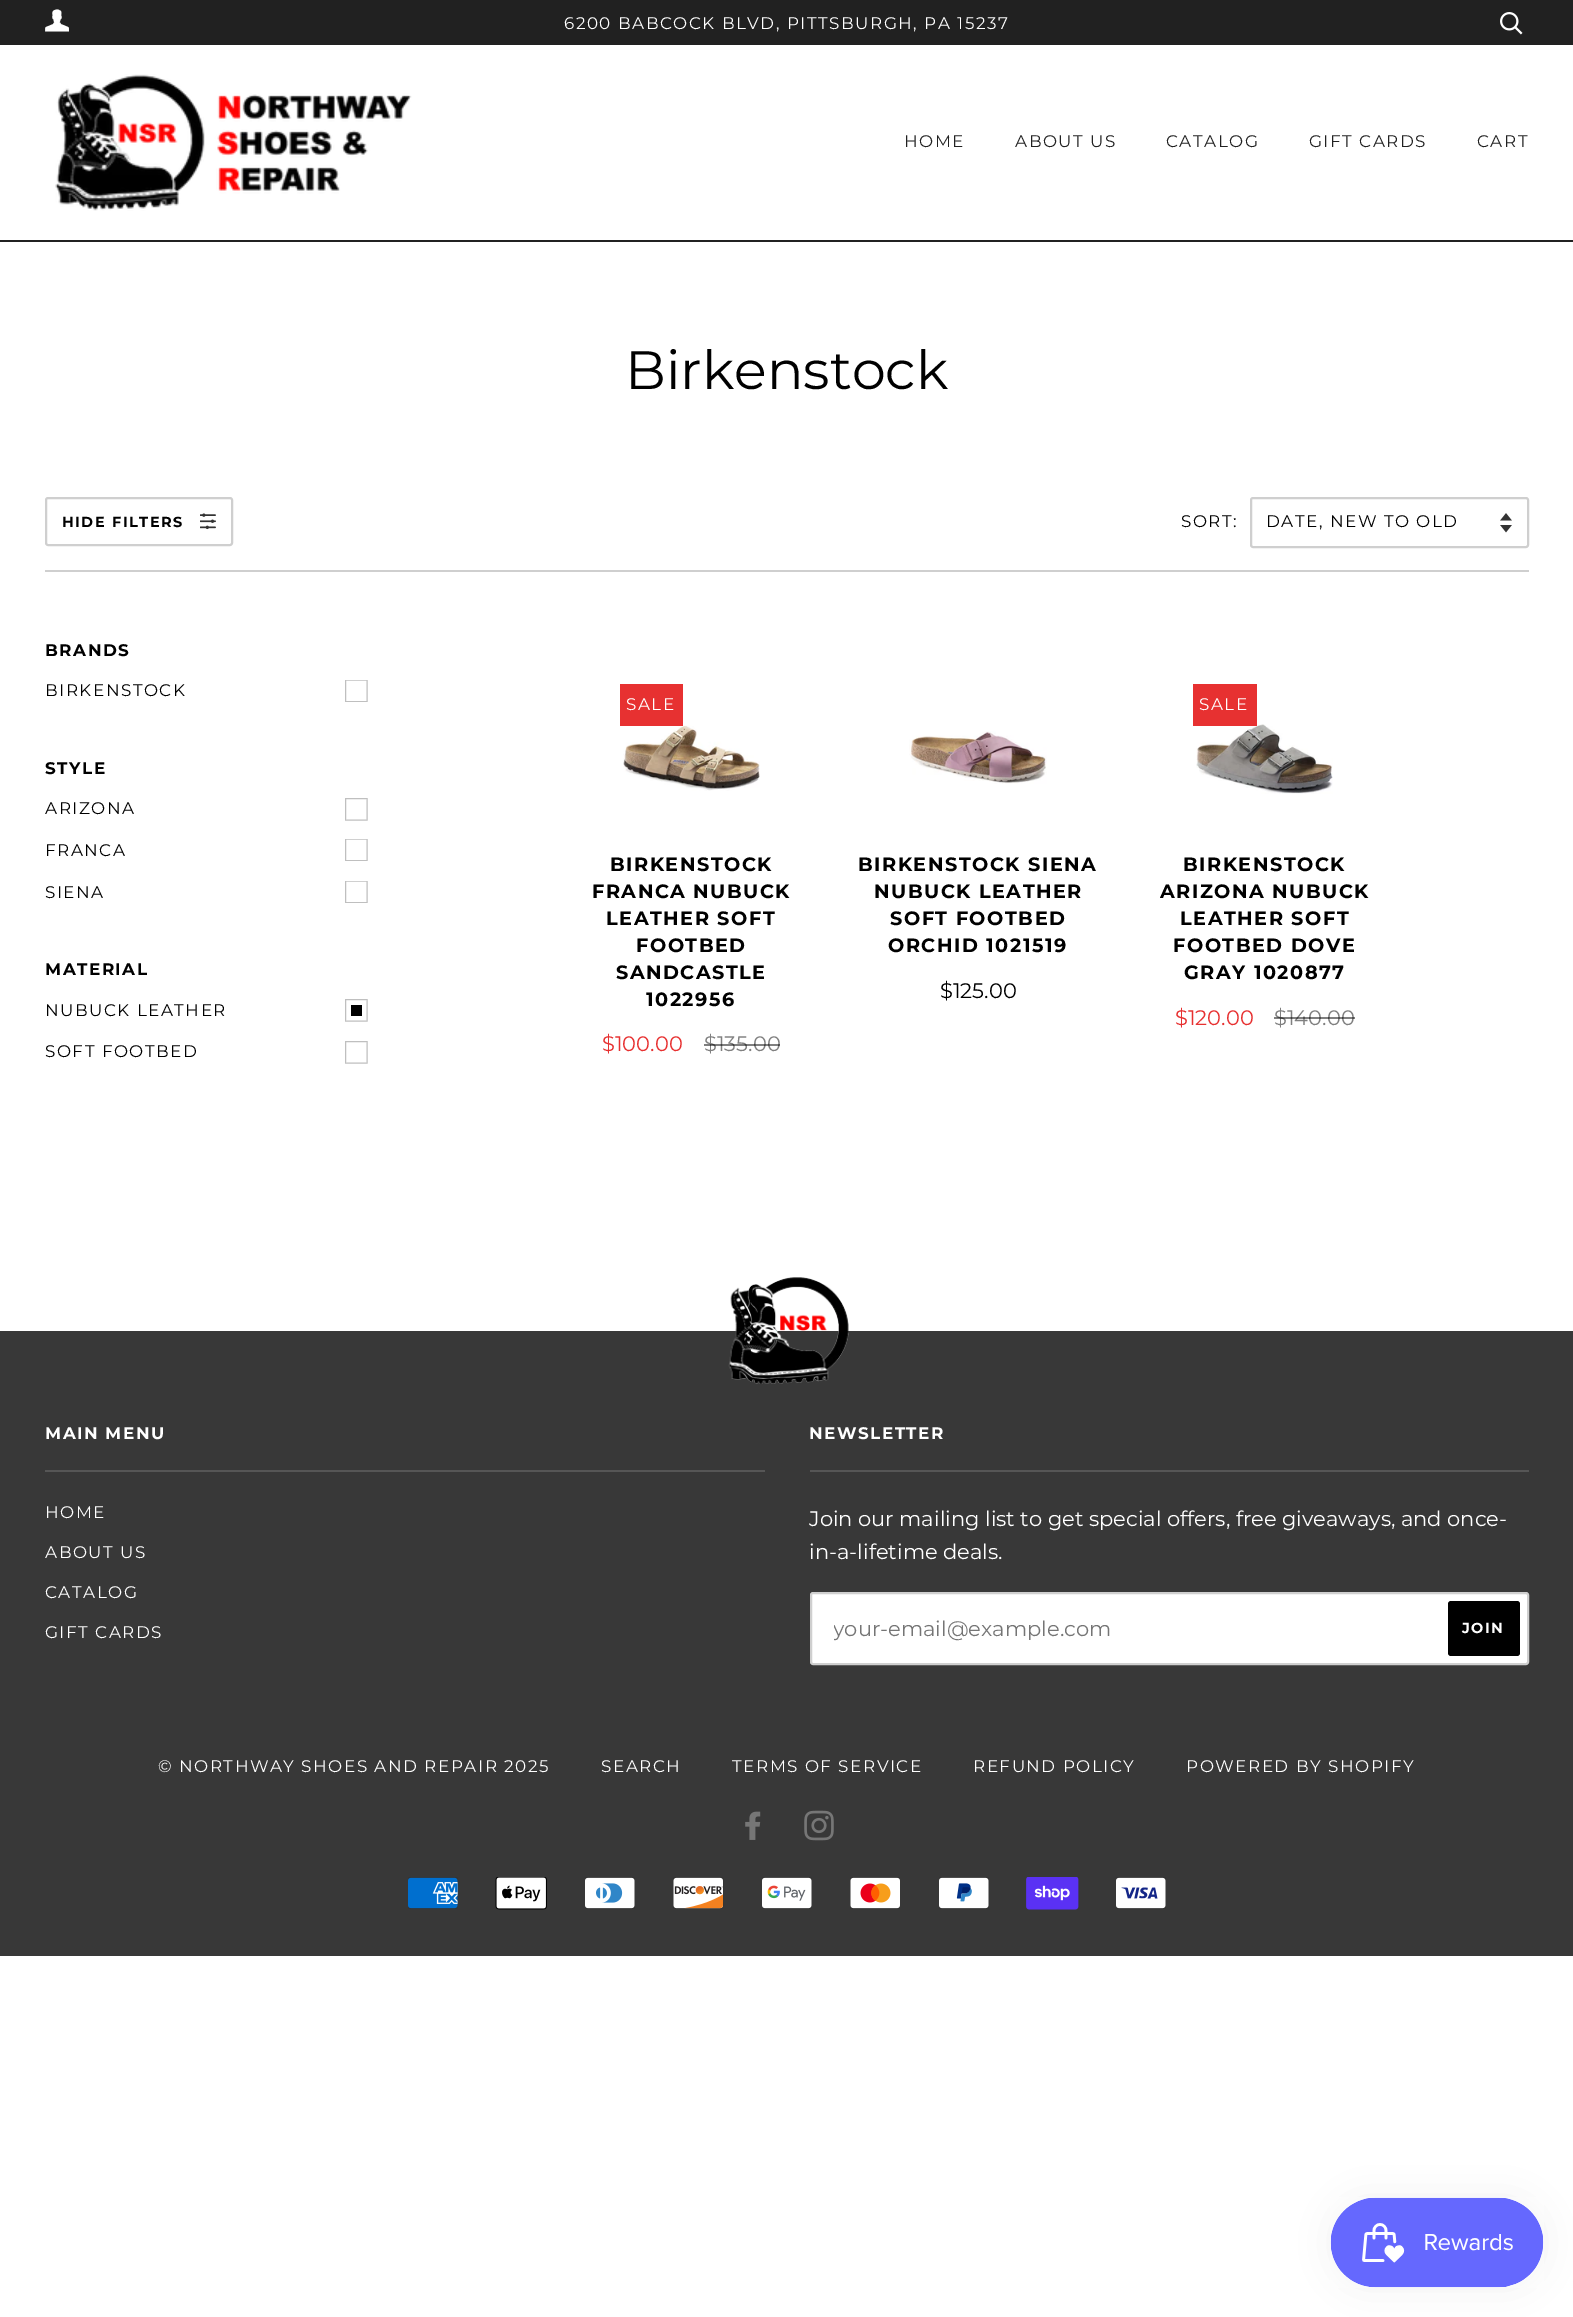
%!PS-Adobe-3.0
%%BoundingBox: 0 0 1573 2317
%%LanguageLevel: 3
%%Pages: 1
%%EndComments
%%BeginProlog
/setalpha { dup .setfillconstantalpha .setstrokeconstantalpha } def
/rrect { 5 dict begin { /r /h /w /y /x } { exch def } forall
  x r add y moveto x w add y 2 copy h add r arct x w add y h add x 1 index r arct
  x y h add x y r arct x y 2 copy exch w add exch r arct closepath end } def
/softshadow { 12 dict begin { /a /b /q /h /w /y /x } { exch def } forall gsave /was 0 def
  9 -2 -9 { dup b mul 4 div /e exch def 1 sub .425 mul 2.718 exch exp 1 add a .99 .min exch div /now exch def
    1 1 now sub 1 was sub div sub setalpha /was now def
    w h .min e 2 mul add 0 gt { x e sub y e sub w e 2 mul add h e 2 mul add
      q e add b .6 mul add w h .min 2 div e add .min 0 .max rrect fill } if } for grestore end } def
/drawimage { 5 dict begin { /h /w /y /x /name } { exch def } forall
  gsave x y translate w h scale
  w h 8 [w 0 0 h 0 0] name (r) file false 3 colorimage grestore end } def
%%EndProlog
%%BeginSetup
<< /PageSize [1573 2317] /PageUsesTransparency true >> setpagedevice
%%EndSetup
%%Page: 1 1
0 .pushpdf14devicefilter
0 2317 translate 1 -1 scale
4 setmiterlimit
1 setgray
0 0 1573 2317 rectfill
0.129 setgray
0 0 1573 45 rectfill
(images/1.raw) 45 9 24 23 drawimage
(images/2.raw) 1500 12 23 23 drawimage
0 240 1573 2 rectfill
(images/3.raw) 55 74 357 137 drawimage
0.812 setgray
2 setlinewidth
46 498 186 47 2 rrect stroke
(images/4.raw) 200 513 16 17 drawimage
(images/5.raw) 1500 513 12 20 drawimage
1251 498 277 49 2 rrect stroke
45 570 1484 2 rectfill
gsave
345 680 23 22 rectclip
0.749 setgray
1.1 setlinewidth
newpath 345.5 680 moveto 367 680 lineto 367 701.5 lineto 345.5 701.5 lineto closepath stroke
grestore
0.749 setgray
1.1 setlinewidth
newpath 345.5 798.5 moveto 367 798.5 lineto 367 820 lineto 345.5 820 lineto closepath stroke
gsave
345 839 23 22 rectclip
newpath 345.5 839 moveto 367 839 lineto 367 860.5 lineto 345.5 860.5 lineto closepath stroke
grestore
gsave
345 881 23 22 rectclip
newpath 345.5 881 moveto 367 881 lineto 367 902.5 lineto 345.5 902.5 lineto closepath stroke
grestore
newpath 345.5 999.5 moveto 367 999.5 lineto 367 1021 lineto 345.5 1021 lineto closepath stroke
0 setgray
351 1005 11 11 rectfill
0.749 setgray
newpath 345.5 1041.5 moveto 367 1041.5 lineto 367 1063 lineto 345.5 1063 lineto closepath stroke
(images/6.raw) 623 725 137 66 drawimage
0.906 0.192 0.192 setrgbcolor
620 684 63 42 rectfill
(images/7.raw) 909 731 138 53 drawimage
(images/8.raw) 1196 724 137 70 drawimage
1193 684 64 42 rectfill
0.22 setgray
0 1331 1573 625 rectfill
(images/9.raw) 728 1277 121 107 drawimage
0.337 setgray
45 1470 720 2 rectfill
810 1470 719 2 rectfill
1 setgray
811 1593 717 71 2 rrect gsave fill grestore
0.812 setgray
2 setlinewidth
stroke
0 setgray
1448 1601 72 55 3 rrect fill
(images/10.raw) 745 1811 16 29 drawimage
(images/11.raw) 804 1810 30 31 drawimage
(images/12.raw) 408 1877 50 32 drawimage
(images/13.raw) 495 1877 52 33 drawimage
(images/14.raw) 585 1877 50 32 drawimage
(images/15.raw) 673 1877 51 32 drawimage
(images/16.raw) 762 1877 50 32 drawimage
(images/17.raw) 850 1877 50 32 drawimage
(images/18.raw) 939 1877 50 32 drawimage
(images/19.raw) 1026 1877 53 33 drawimage
(images/20.raw) 1116 1877 50 32 drawimage
1331 2198 213 90 45 19 0.05 softshadow
(images/21.raw) 1330 2197 214 91 drawimage
/Montserrat-Regular [16.8 0 0 -16.8 0 0] selectfont
1 setgray
564 29 moveto 1.5 0 (6200 BABCOCK BLVD, PITTSBURGH, PA 15237) ashow
0.129 setgray
904 147 moveto 1.5 0 (HOME) ashow
1015 147 moveto 1.5 0 (ABOUT US) ashow
1166 147 moveto 1.5 0 (CATALOG) ashow
1309 147 moveto 1.5 0 (GIFT CARDS) ashow
1477 147 moveto 1.5 0 (CART) ashow
/Montserrat-Regular [54 0 0 -54 0 0] selectfont
0 setgray
625 389 moveto (Birkenstock) show
/Montserrat-Bold [14.5 0 0 -14.5 0 0] selectfont
62 527 moveto 1.5 0 (HIDE FILTERS) ashow
/Montserrat-Regular [16.8 0 0 -16.8 0 0] selectfont
1181 527 moveto 1.5 0 (SORT:) ashow
1266 527 moveto 1.5 0 (DATE, NEW TO OLD) ashow
/Montserrat-Bold [16.8 0 0 -16.8 0 0] selectfont
45 656 moveto 1.5 0 (BRANDS) ashow
/Montserrat-Regular [16.8 0 0 -16.8 0 0] selectfont
45 696 moveto 1.5 0 (BIRKENSTOCK) ashow
/Montserrat-Bold [16.8 0 0 -16.8 0 0] selectfont
45 774 moveto 1.5 0 (STYLE) ashow
/Montserrat-Regular [16.8 0 0 -16.8 0 0] selectfont
45 814 moveto 1.5 0 (ARIZONA) ashow
45 856 moveto 1.5 0 (FRANCA) ashow
45 898 moveto 1.5 0 (SIENA) ashow
/Montserrat-Bold [16.8 0 0 -16.8 0 0] selectfont
45 975 moveto 1.5 0 (MATERIAL) ashow
/Montserrat-Regular [16.8 0 0 -16.8 0 0] selectfont
45 1016 moveto 1.5 0 (NUBUCK LEATHER) ashow
45 1057 moveto 1.5 0 (SOFT FOOTBED) ashow
1 setgray
626 710 moveto 1.5 0 (SALE) ashow
/Montserrat-Bold [19.25 0 0 -19.25 0 0] selectfont
0 setgray
610 871 moveto 1.5 0 (BIRKENSTOCK) ashow
592 898 moveto 1.5 0 (FRANCA NUBUCK) ashow
606 925 moveto 1.5 0 (LEATHER SOFT) ashow
636 952 moveto 1.5 0 (FOOTBED) ashow
616 979 moveto 1.5 0 (SANDCASTLE) ashow
646 1006 moveto 1.5 0 (1022956) ashow
/Montserrat-Regular [21 0 0 -21 0 0] selectfont
0.906 0.192 0.192 setrgbcolor
602 1051 moveto ($100.00) show
0.502 setgray
704 1051 moveto ($135.00) show
0.5 setalpha
0 setgray
704 1044 76 2 rectfill
/Montserrat-Bold [19.25 0 0 -19.25 0 0] selectfont
1 setalpha
858 871 moveto 1.5 0 (BIRKENSTOCK SIENA) ashow
874 898 moveto 1.5 0 (NUBUCK LEATHER) ashow
890 925 moveto 1.5 0 (SOFT FOOTBED) ashow
888 952 moveto 1.5 0 (ORCHID 1021519) ashow
/Montserrat-Regular [21 0 0 -21 0 0] selectfont
940 998 moveto ($125.00) show
/Montserrat-Regular [16.8 0 0 -16.8 0 0] selectfont
1 setgray
1199 710 moveto 1.5 0 (SALE) ashow
/Montserrat-Bold [19.25 0 0 -19.25 0 0] selectfont
0 setgray
1183 871 moveto 1.5 0 (BIRKENSTOCK) ashow
1160 898 moveto 1.5 0 (ARIZONA NUBUCK) ashow
1180 925 moveto 1.5 0 (LEATHER SOFT) ashow
1173 952 moveto 1.5 0 (FOOTBED DOVE) ashow
1184 979 moveto 1.5 0 (GRAY 1020877) ashow
/Montserrat-Regular [21 0 0 -21 0 0] selectfont
0.906 0.192 0.192 setrgbcolor
1175 1025 moveto ($120.00) show
0.502 setgray
1274 1025 moveto ($140.00) show
0.5 setalpha
0 setgray
1274 1017 81 2 rectfill
/Montserrat-Bold [16.8 0 0 -16.8 0 0] selectfont
1 setalpha
1 setgray
45 1439 moveto 1.5 0 (MAIN MENU) ashow
/Montserrat-Regular [16.8 0 0 -16.8 0 0] selectfont
45 1518 moveto 1.5 0 (HOME) ashow
45 1558 moveto 1.5 0 (ABOUT US) ashow
45 1598 moveto 1.5 0 (CATALOG) ashow
45 1638 moveto 1.5 0 (GIFT CARDS) ashow
/Montserrat-Bold [16.8 0 0 -16.8 0 0] selectfont
809 1439 moveto 1.5 0 (NEWSLETTER) ashow
/Montserrat-Regular [21 0 0 -21 0 0] selectfont
809 1526 moveto (Join our mailing list to get special offers, free giveaways, and once-) show
809 1559 moveto (in-a-lifetime deals.) show
gsave
834 1616 599 27 rectclip
0.459 setgray
833 1636 moveto (your-email@example.com) show
grestore
/Montserrat-Bold [14.5 0 0 -14.5 0 0] selectfont
1462 1633 moveto 1.5 0 (JOIN) ashow
/Montserrat-Regular [16.8 0 0 -16.8 0 0] selectfont
158 1772 moveto 1.5 0 (© NORTHWAY SHOES AND REPAIR 2025) ashow
601 1772 moveto 1.5 0 (SEARCH) ashow
732 1772 moveto 1.5 0 (TERMS OF SERVICE) ashow
973 1772 moveto 1.5 0 (REFUND POLICY) ashow
1186 1772 moveto 1.5 0 (POWERED BY SHOPIFY) ashow
.poppdf14devicefilter showpage
%%EOF
